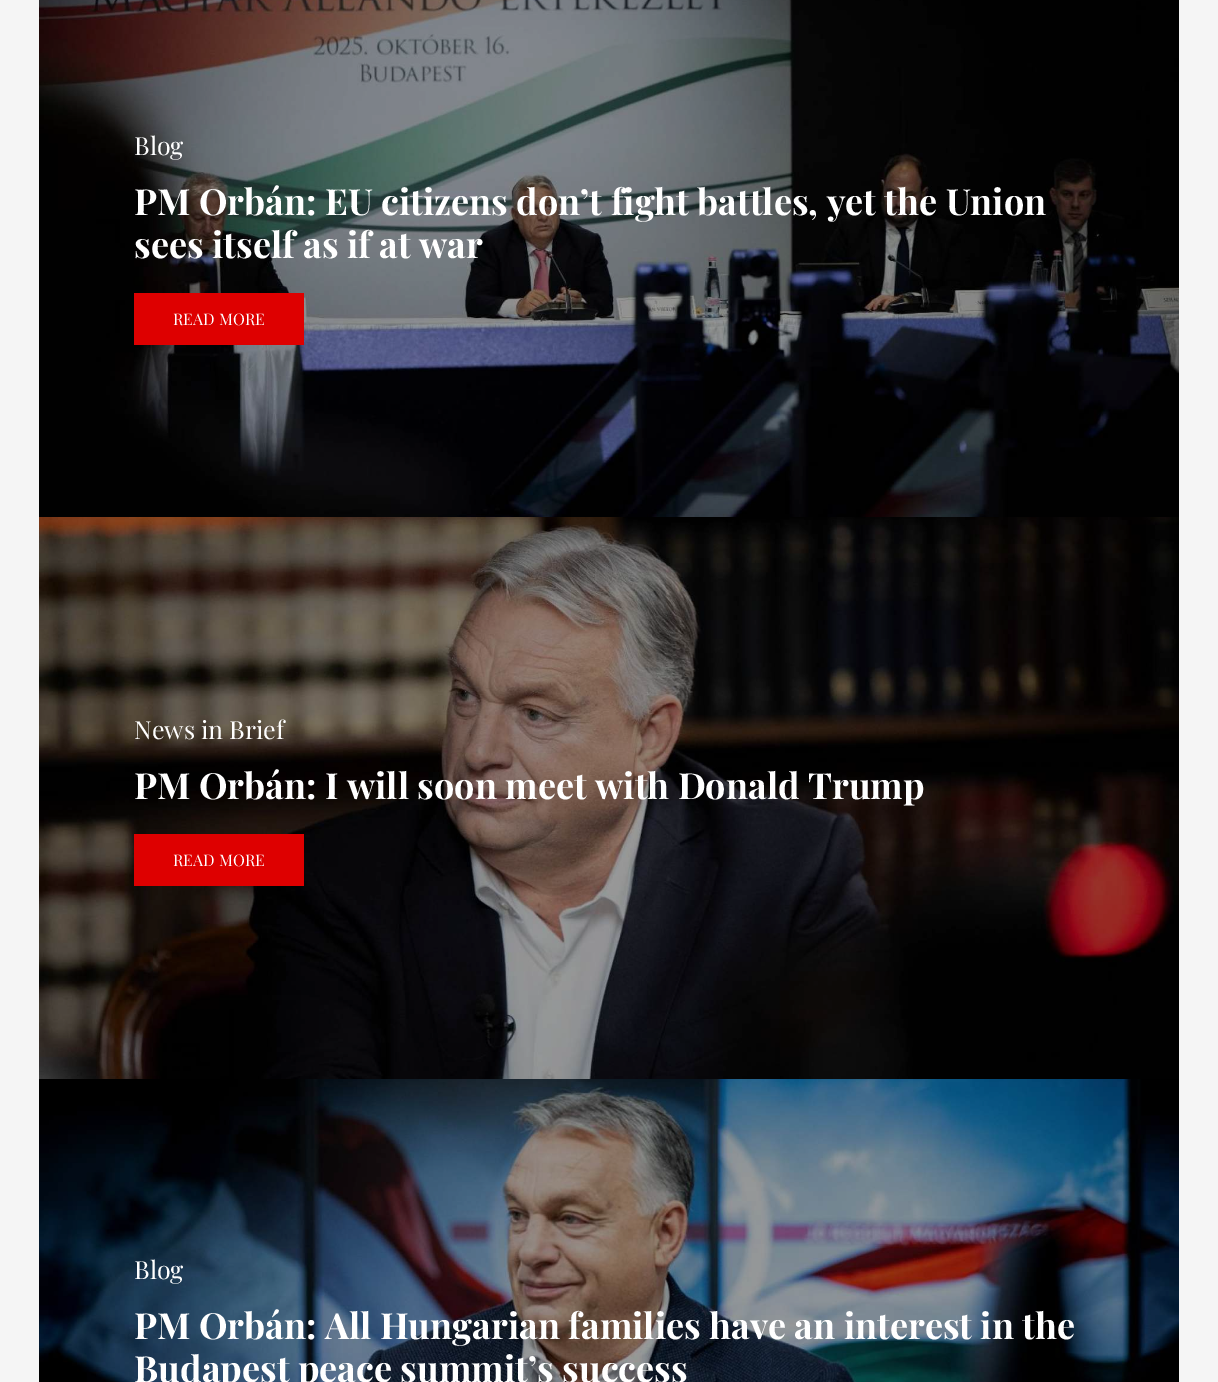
%!PS-Adobe-3.0
%%BoundingBox: 0 0 1218 1382
%%LanguageLevel: 3
%%Pages: 1
%%EndComments
%%BeginProlog
/drawimage { 5 dict begin { /h /w /y /x /name } { exch def } forall
  gsave x y translate w h scale
  w h 8 [w 0 0 h 0 0] name (r) file false 3 colorimage grestore end } def
%%EndProlog
%%BeginSetup
<< /PageSize [1218 1382] >> setpagedevice
%%EndSetup
%%Page: 1 1
0 1382 translate 1 -1 scale
4 setmiterlimit
0.961 setgray
0 0 1218 1382 rectfill
(images/1.raw) 39 0 1140 517 drawimage
0.871 0 0 setrgbcolor
134 293 170 52 rectfill
(images/2.raw) 39 517 1140 562 drawimage
134 834 170 52 rectfill
(images/3.raw) 39 1079 1140 303 drawimage
/PlayfairDisplay-Regular [25 0 0 -25 0 0] selectfont
1 setgray
134 155 moveto (Blog) show
/PlayfairDisplay-Bold [36 0 0 -36 0 0] selectfont
134 215 moveto (PM Orbán: EU citizens don’t fight battles, yet the Union) show
134 258 moveto (sees itself as if at war) show
/PlayfairDisplay-Regular [16 0 0 -16 0 0] selectfont
173 325 moveto (READ MORE) show
/PlayfairDisplay-Regular [25 0 0 -25 0 0] selectfont
134 739 moveto (News in Brief) show
/PlayfairDisplay-Bold [36 0 0 -36 0 0] selectfont
134 799 moveto (PM Orbán: I will soon meet with Donald Trump) show
/PlayfairDisplay-Regular [16 0 0 -16 0 0] selectfont
173 866 moveto (READ MORE) show
/PlayfairDisplay-Regular [25 0 0 -25 0 0] selectfont
134 1279 moveto (Blog) show
/PlayfairDisplay-Bold [36 0 0 -36 0 0] selectfont
134 1339 moveto (PM Orbán: All Hungarian families have an interest in the) show
134 1382 moveto (Budapest peace summit’s success) show
showpage
%%EOF
